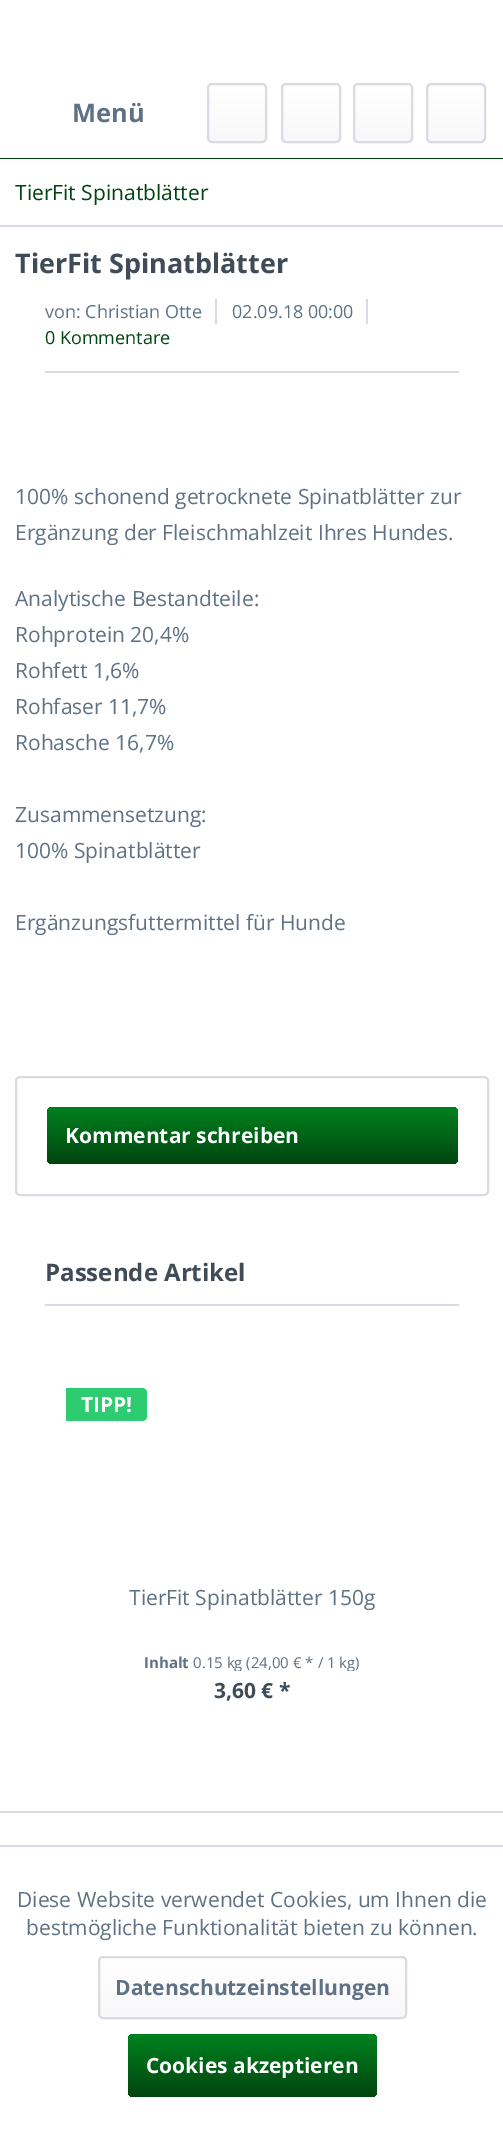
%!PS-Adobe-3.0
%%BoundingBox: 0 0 503 2134
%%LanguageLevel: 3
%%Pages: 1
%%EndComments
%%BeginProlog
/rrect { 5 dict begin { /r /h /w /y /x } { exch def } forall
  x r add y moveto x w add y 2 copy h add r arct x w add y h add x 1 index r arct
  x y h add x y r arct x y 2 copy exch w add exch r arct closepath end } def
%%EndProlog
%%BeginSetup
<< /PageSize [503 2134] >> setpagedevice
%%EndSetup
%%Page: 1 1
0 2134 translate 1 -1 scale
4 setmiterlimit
1 setgray
0 0 503 2134 rectfill
0 0.271 0.063 setrgbcolor
0 158 503 1 rectfill
gsave 209 84 57 57 3 rrect clip newpath
<< /ShadingType 2 /ColorSpace /DeviceRGB /Coords [237 84 237 141] /Extend [true true] /Function << /FunctionType 2 /Domain [0 1] /C0 [1 1 1] /C1 [0.973 0.973 0.98] /N 1 >> >> shfill grestore
0.855 0.855 0.898 setrgbcolor
2 setlinewidth
208 84 58 58 4 rrect stroke
gsave 282 84 57 57 3 rrect clip newpath
<< /ShadingType 2 /ColorSpace /DeviceRGB /Coords [311 84 311 141] /Extend [true true] /Function << /FunctionType 2 /Domain [0 1] /C0 [1 1 1] /C1 [0.973 0.973 0.98] /N 1 >> >> shfill grestore
282 84 58 58 4 rrect stroke
gsave 354 84 57 57 3 rrect clip newpath
<< /ShadingType 2 /ColorSpace /DeviceRGB /Coords [383 84 383 141] /Extend [true true] /Function << /FunctionType 2 /Domain [0 1] /C0 [1 1 1] /C1 [0.973 0.973 0.98] /N 1 >> >> shfill grestore
354 84 58 58 4 rrect stroke
gsave 428 84 57 57 3 rrect clip newpath
<< /ShadingType 2 /ColorSpace /DeviceRGB /Coords [456 84 456 141] /Extend [true true] /Function << /FunctionType 2 /Domain [0 1] /C0 [1 1 1] /C1 [0.973 0.973 0.98] /N 1 >> >> shfill grestore
427 84 58 58 4 rrect stroke
0 225 503 2 rectfill
45 371 414 2 rectfill
215 299 2 25 rectfill
366 299 2 25 rectfill
16 1077 472 118 4 rrect stroke
gsave 47 1107 411 57 5 rrect clip newpath
<< /ShadingType 2 /ColorSpace /DeviceRGB /Coords [252 1107 252 1164] /Extend [true true] /Function << /FunctionType 2 /Domain [0 1] /C0 [0 0.51 0.118] /C1 [0 0.271 0.063] /N 1 >> >> shfill grestore
45 1304 414 2 rectfill
0.18 0.8 0.443 setrgbcolor
newpath 66 1388 moveto 142 1388 lineto 145 1388 147 1390 147 1393 curveto 147 1416 lineto 147 1419 145 1421 142 1421 curveto 66 1421 lineto closepath fill
0.855 0.855 0.898 setrgbcolor
0 1811 503 2 rectfill
0 1845 503 2 rectfill
gsave 99 1958 306 60 3 rrect clip newpath
<< /ShadingType 2 /ColorSpace /DeviceRGB /Coords [252 1958 252 2018] /Extend [true true] /Function << /FunctionType 2 /Domain [0 1] /C0 [1 1 1] /C1 [0.973 0.973 0.98] /N 1 >> >> shfill grestore
99 1957 307 61 4 rrect stroke
gsave 128 2034 249 63 5 rrect clip newpath
<< /ShadingType 2 /ColorSpace /DeviceRGB /Coords [252 2034 252 2097] /Extend [true true] /Function << /FunctionType 2 /Domain [0 1] /C0 [0 0.51 0.118] /C1 [0 0.271 0.063] /N 1 >> >> shfill grestore
/OpenSans-Bold [25.5 0 0 -25.5 0 0] selectfont
0.373 0.447 0.522 setrgbcolor
72 122 moveto (Menü) show
/OpenSans-Regular [21 0 0 -21 0 0] selectfont
0 0.271 0.063 setrgbcolor
15 200 moveto (TierFit Spinatblätter) show
/OpenSans-Bold [27 0 0 -27 0 0] selectfont
0.247 0.298 0.345 setrgbcolor
15 273 moveto (TierFit Spinatblätter) show
/OpenSans-Regular [18 0 0 -18 0 0] selectfont
0.373 0.447 0.522 setrgbcolor
45 318 moveto (von: Christian Otte) show
232 318 moveto (02.09.18 00:00) show
0 0.271 0.063 setrgbcolor
45 344 moveto (0 Kommentare) show
/OpenSans-Regular [21 0 0 -21 0 0] selectfont
0.373 0.447 0.522 setrgbcolor
15 504 moveto (100% schonend getrocknete Spinatblätter zur) show
15 540 moveto (Ergänzung der Fleischmahlzeit Ihres Hundes.) show
15 606 moveto (Analytische Bestandteile:) show
15 642 moveto (Rohprotein 20,4%) show
15 678 moveto (Rohfett 1,6%) show
15 714 moveto (Rohfaser 11,7%) show
15 750 moveto (Rohasche 16,7%) show
15 822 moveto (Zusammensetzung:) show
15 858 moveto (100% Spinatblätter) show
15 930 moveto (Ergänzungsfuttermittel für Hunde) show
/OpenSans-Bold [21 0 0 -21 0 0] selectfont
1 setgray
65 1143 moveto (Kommentar schreiben) show
/OpenSans-Bold [24 0 0 -24 0 0] selectfont
0.247 0.298 0.345 setrgbcolor
45 1281 moveto (Passende Artikel) show
/OpenSans-Bold [21 0 0 -21 0 0] selectfont
1 setgray
81 1412 moveto (TIPP!) show
/OpenSans-Regular [21 0 0 -21 0 0] selectfont
0.373 0.447 0.522 setrgbcolor
129 1605 moveto (TierFit Spinatblätter 150g) show
/OpenSans-Bold [15 0 0 -15 0 0] selectfont
144 1668 moveto (Inhalt) show
gsave
68 1650 369 21 rectclip
/OpenSans-Regular [15 0 0 -15 0 0] selectfont
193 1668 moveto (0.15 kg \(24,00 € * / 1 kg\)) show
grestore
/OpenSans-Bold [21 0 0 -21 0 0] selectfont
0.247 0.298 0.345 setrgbcolor
214 1698 moveto (3,60 € *) show
/OpenSans-Regular [21 0 0 -21 0 0] selectfont
0.373 0.447 0.522 setrgbcolor
17 1907 moveto (Diese Website verwendet Cookies, um Ihnen die) show
26 1935 moveto (bestmögliche Funktionalität bieten zu können.) show
/OpenSans-Bold [21 0 0 -21 0 0] selectfont
115 1995 moveto (Datenschutzeinstellungen) show
1 setgray
146 2073 moveto (Cookies akzeptieren) show
showpage
%%EOF
